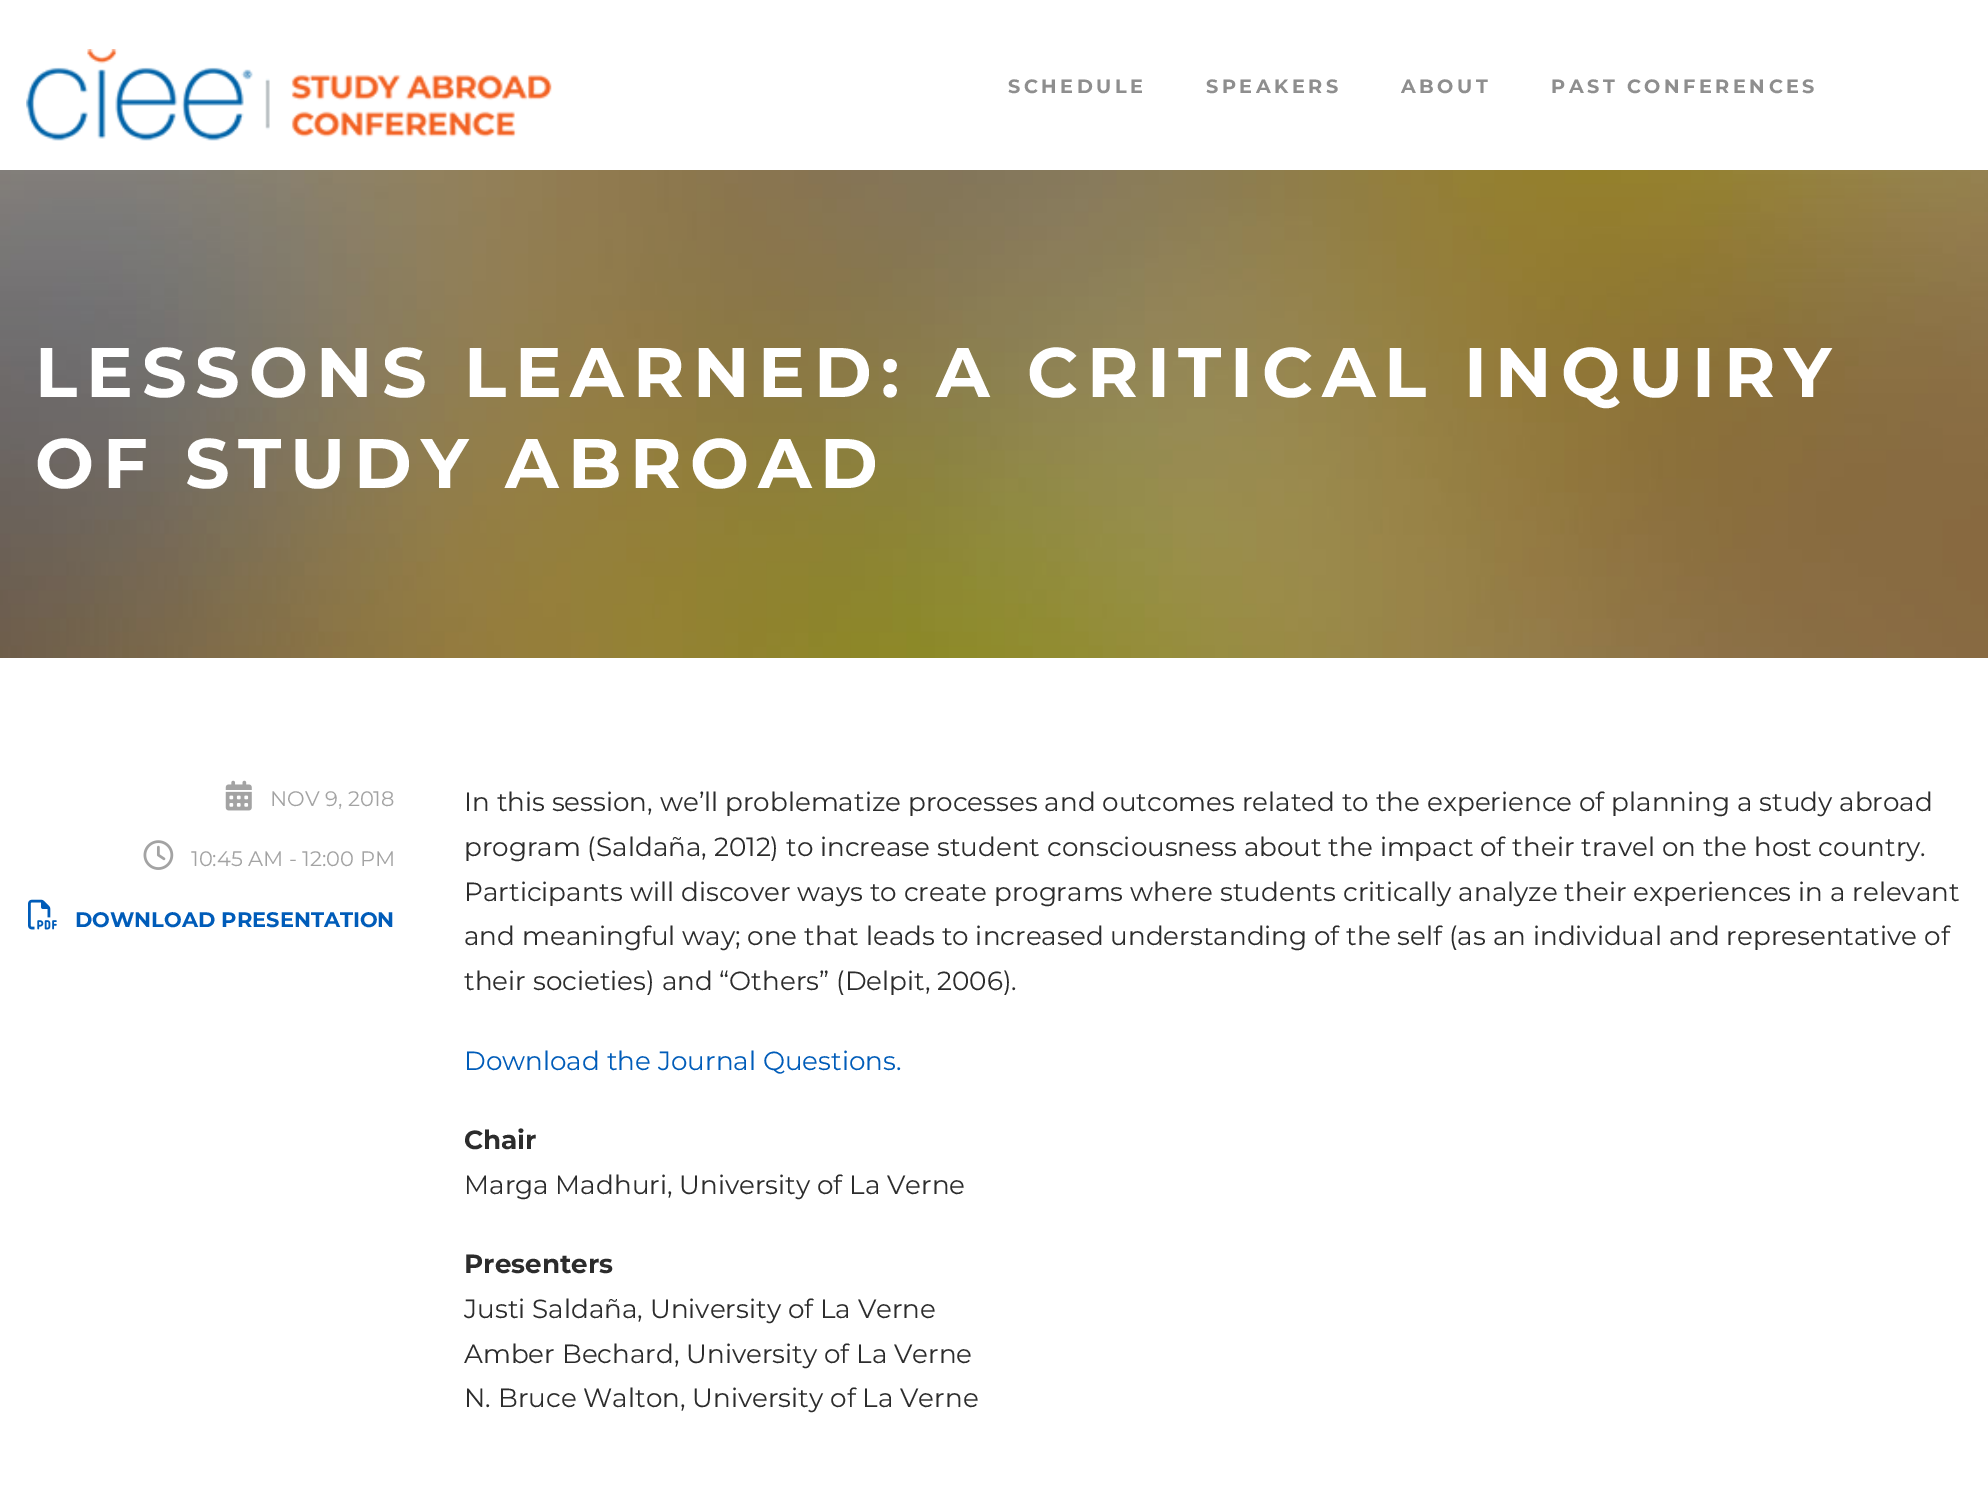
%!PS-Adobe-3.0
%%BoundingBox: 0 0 1988 1494
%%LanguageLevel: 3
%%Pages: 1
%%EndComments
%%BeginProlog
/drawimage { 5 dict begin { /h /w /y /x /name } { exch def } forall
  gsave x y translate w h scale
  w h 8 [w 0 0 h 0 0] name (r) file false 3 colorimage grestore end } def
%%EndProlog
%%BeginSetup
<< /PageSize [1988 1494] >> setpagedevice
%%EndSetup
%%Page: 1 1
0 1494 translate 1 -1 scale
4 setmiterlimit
1 setgray
0 0 1988 1494 rectfill
(images/1.raw) 26 49 526 92 drawimage
(images/2.raw) 0 170 1988 488 drawimage
(images/3.raw) 225 780 27 31 drawimage
(images/4.raw) 143 840 31 30 drawimage
(images/5.raw) 28 899 29 31 drawimage
/Montserrat-Bold [19.25 0 0 -19.25 0 0] selectfont
0.557 setgray
1008 93 moveto 3.5 0 (SCHEDULE) ashow
1206 93 moveto 3.5 0 (SPEAKERS) ashow
1401 93 moveto 3.5 0 (ABOUT) ashow
1551 93 moveto 3.5 0 (PAST CONFERENCES) ashow
/Montserrat-Bold [70 0 0 -70 0 0] selectfont
1 setgray
35 397 moveto 8.75 0 (LESSONS LEARNED: A CRITICAL INQUIRY) ashow
35 488 moveto 8.75 0 (OF STUDY ABROAD) ashow
/Montserrat-Regular [21 0 0 -21 0 0] selectfont
0.639 setgray
270 806 moveto (NOV 9, 2018) show
191 866 moveto (10:45 AM - 12:00 PM) show
/Montserrat-Bold [21 0 0 -21 0 0] selectfont
0 0.361 0.725 setrgbcolor
75 927 moveto (DOWNLOAD PRESENTATION) show
/Montserrat-Regular [26.25 0 0 -26.25 0 0] selectfont
0.173 setgray
464 811 moveto (In this session, we’ll problematize processes and outcomes related to the experience of planning a study abroad) show
464 856 moveto (program \(Saldaña, 2012\) to increase student consciousness about the impact of their travel on the host country.) show
464 901 moveto (Participants will discover ways to create programs where students critically analyze their experiences in a relevant) show
464 945 moveto (and meaningful way; one that leads to increased understanding of the self \(as an individual and representative of) show
464 990 moveto (their societies\) and “Others” \(Delpit, 2006\).) show
0 0.361 0.725 setrgbcolor
464 1070 moveto (Download the Journal Questions.) show
/Montserrat-Bold [26.25 0 0 -26.25 0 0] selectfont
0.173 setgray
464 1149 moveto (Chair) show
/Montserrat-Regular [26.25 0 0 -26.25 0 0] selectfont
464 1194 moveto (Marga Madhuri, University of La Verne) show
/Montserrat-Bold [26.25 0 0 -26.25 0 0] selectfont
464 1273 moveto (Presenters) show
/Montserrat-Regular [26.25 0 0 -26.25 0 0] selectfont
464 1318 moveto (Justi Saldaña, University of La Verne) show
464 1363 moveto (Amber Bechard, University of La Verne) show
464 1407 moveto (N. Bruce Walton, University of La Verne) show
showpage
%%EOF
